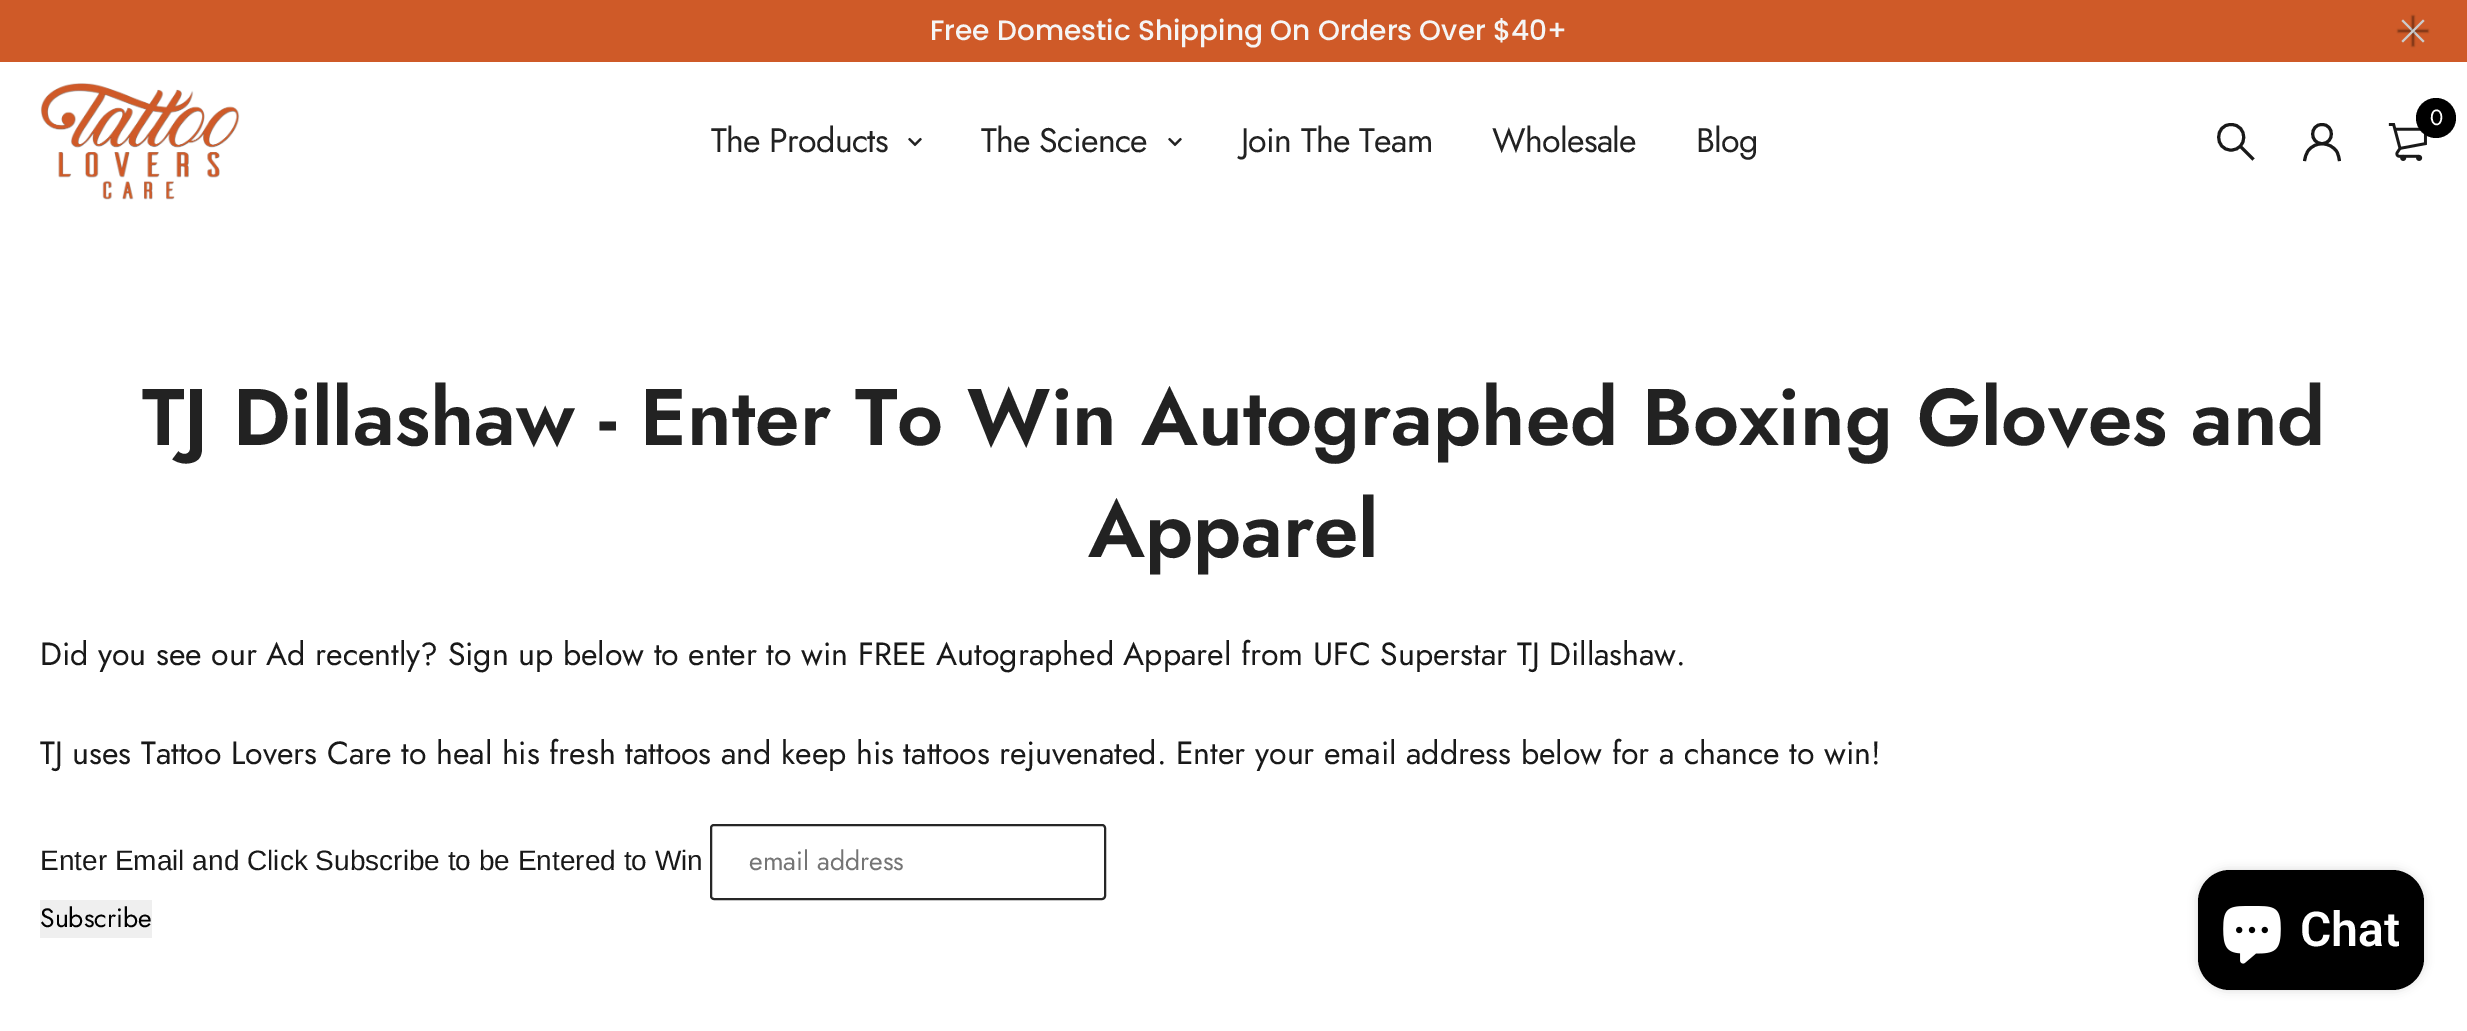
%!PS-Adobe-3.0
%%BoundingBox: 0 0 2467 1031
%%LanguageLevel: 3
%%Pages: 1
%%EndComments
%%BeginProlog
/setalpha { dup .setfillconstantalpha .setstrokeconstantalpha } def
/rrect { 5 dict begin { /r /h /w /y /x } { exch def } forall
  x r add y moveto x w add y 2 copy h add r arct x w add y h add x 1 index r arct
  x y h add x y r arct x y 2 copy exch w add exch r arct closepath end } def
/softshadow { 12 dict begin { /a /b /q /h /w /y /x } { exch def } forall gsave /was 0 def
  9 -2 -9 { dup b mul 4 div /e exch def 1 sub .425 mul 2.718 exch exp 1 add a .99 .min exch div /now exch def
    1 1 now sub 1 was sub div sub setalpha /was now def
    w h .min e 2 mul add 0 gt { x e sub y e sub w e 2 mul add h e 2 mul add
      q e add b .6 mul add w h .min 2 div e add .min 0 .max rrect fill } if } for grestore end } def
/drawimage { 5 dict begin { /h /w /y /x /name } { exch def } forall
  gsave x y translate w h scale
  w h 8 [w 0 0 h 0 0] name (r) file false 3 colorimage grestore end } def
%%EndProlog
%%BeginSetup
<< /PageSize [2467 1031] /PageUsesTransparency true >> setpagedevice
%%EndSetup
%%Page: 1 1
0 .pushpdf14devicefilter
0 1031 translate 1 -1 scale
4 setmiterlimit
1 setgray
0 0 2467 1031 rectfill
0.812 0.353 0.157 setrgbcolor
0 0 2467 62 rectfill
0 setgray
2398 30 30 2 0 1 0.5 softshadow
0.8 setgray
newpath 2403 19.5 moveto 2424.5 41 lineto 2423 42.5 lineto 2401.5 21 lineto closepath fill
0 setgray
2412 16 2 30 0 1 0.5 softshadow
0.8 setgray
newpath 2423 19.5 moveto 2424.5 21 lineto 2403 42.5 lineto 2401.5 41 lineto closepath fill
(images/1.raw) 40 83 200 117 drawimage
(images/2.raw) 2388 123 39 38 drawimage
0 setgray
newpath 2436 118 20 0 360 arc closepath fill
0.098 setgray
3 setlinewidth
newpath 2231 150 moveto 2248 150 2248 124.5 2231 124.5 curveto 2214.5 124.5 2214.5 150 2231 150 curveto closepath 2253.5 159.5 moveto 2240 146 lineto stroke
newpath 2322 143.5 moveto 2334.5 143.5 2334.5 124.5 2322 124.5 curveto 2309.5 124.5 2309.5 143.5 2322 143.5 curveto closepath 2304.5 161 moveto 2305 157.5 2306 154 2308 151 curveto 2315 141 2330.5 141.5 2337 152 curveto 2338.5 155 2339 158 2339.5 161 curveto stroke
(images/3.raw) 908 137 14 10 drawimage
(images/3.raw) 1168 137 14 10 drawimage
0.149 setgray
2 setlinewidth
711 825 394 74 3 rrect stroke
0.937 setgray
40 900 112 38 rectfill
0 setgray
2198 870 226 120 32 5 0.15 softshadow
2198 870 226 120 32 rrect fill
(images/4.raw) 2223 906 58 58 drawimage
/Poppins-Medium [28 0 0 -28 0 0] selectfont
0.961 setgray
930 40 moveto (Free Domestic Shipping On Orders Over $40+) show
/Jost-Regular [22 0 0 -22 0 0] selectfont
1 setgray
2430 125 moveto -0.75 0 (0) ashow
/Jost-Regular [34 0 0 -34 0 0] selectfont
0.133 setgray
711 152 moveto -0.75 0 (The Products) ashow
981 152 moveto -0.75 0 (The Science) ashow
1241 152 moveto -0.75 0 (Join The Team) ashow
1492 152 moveto -0.75 0 (Wholesale) ashow
1696 152 moveto -0.75 0 (Blog) ashow
/Jost-SemiBold [80 0 0 -80 0 0] selectfont
142 445 moveto (TJ Dillashaw - Enter To Win Autographed Boxing Gloves and) show
1088 557 moveto (Apparel) show
/Jost-Regular [32 0 0 -32 0 0] selectfont
0.098 setgray
40 665 moveto (Did you see our Ad recently? Sign up below to enter to win FREE Autographed Apparel from UFC Superstar TJ Dillashaw.) show
40 764 moveto (TJ uses Tattoo Lovers Care to heal his fresh tattoos and keep his tattoos rejuvenated. Enter your email address below for a chance to win!) show
/LiberationSans-Regular [28 0 0 -28 0 0] selectfont
40 870 moveto (Enter Email and Click Subscribe to be Entered to Win) show
/Jost-Regular [26.5 0 0 -26.5 0 0] selectfont
0.459 setgray
749 870 moveto (email address) show
0 setgray
40 927 moveto (Subscribe) show
/Roboto-SemiBold [48 0 0 -48 0 0] selectfont
1 setgray
2300 946 moveto (Chat) show
.poppdf14devicefilter showpage
%%EOF
